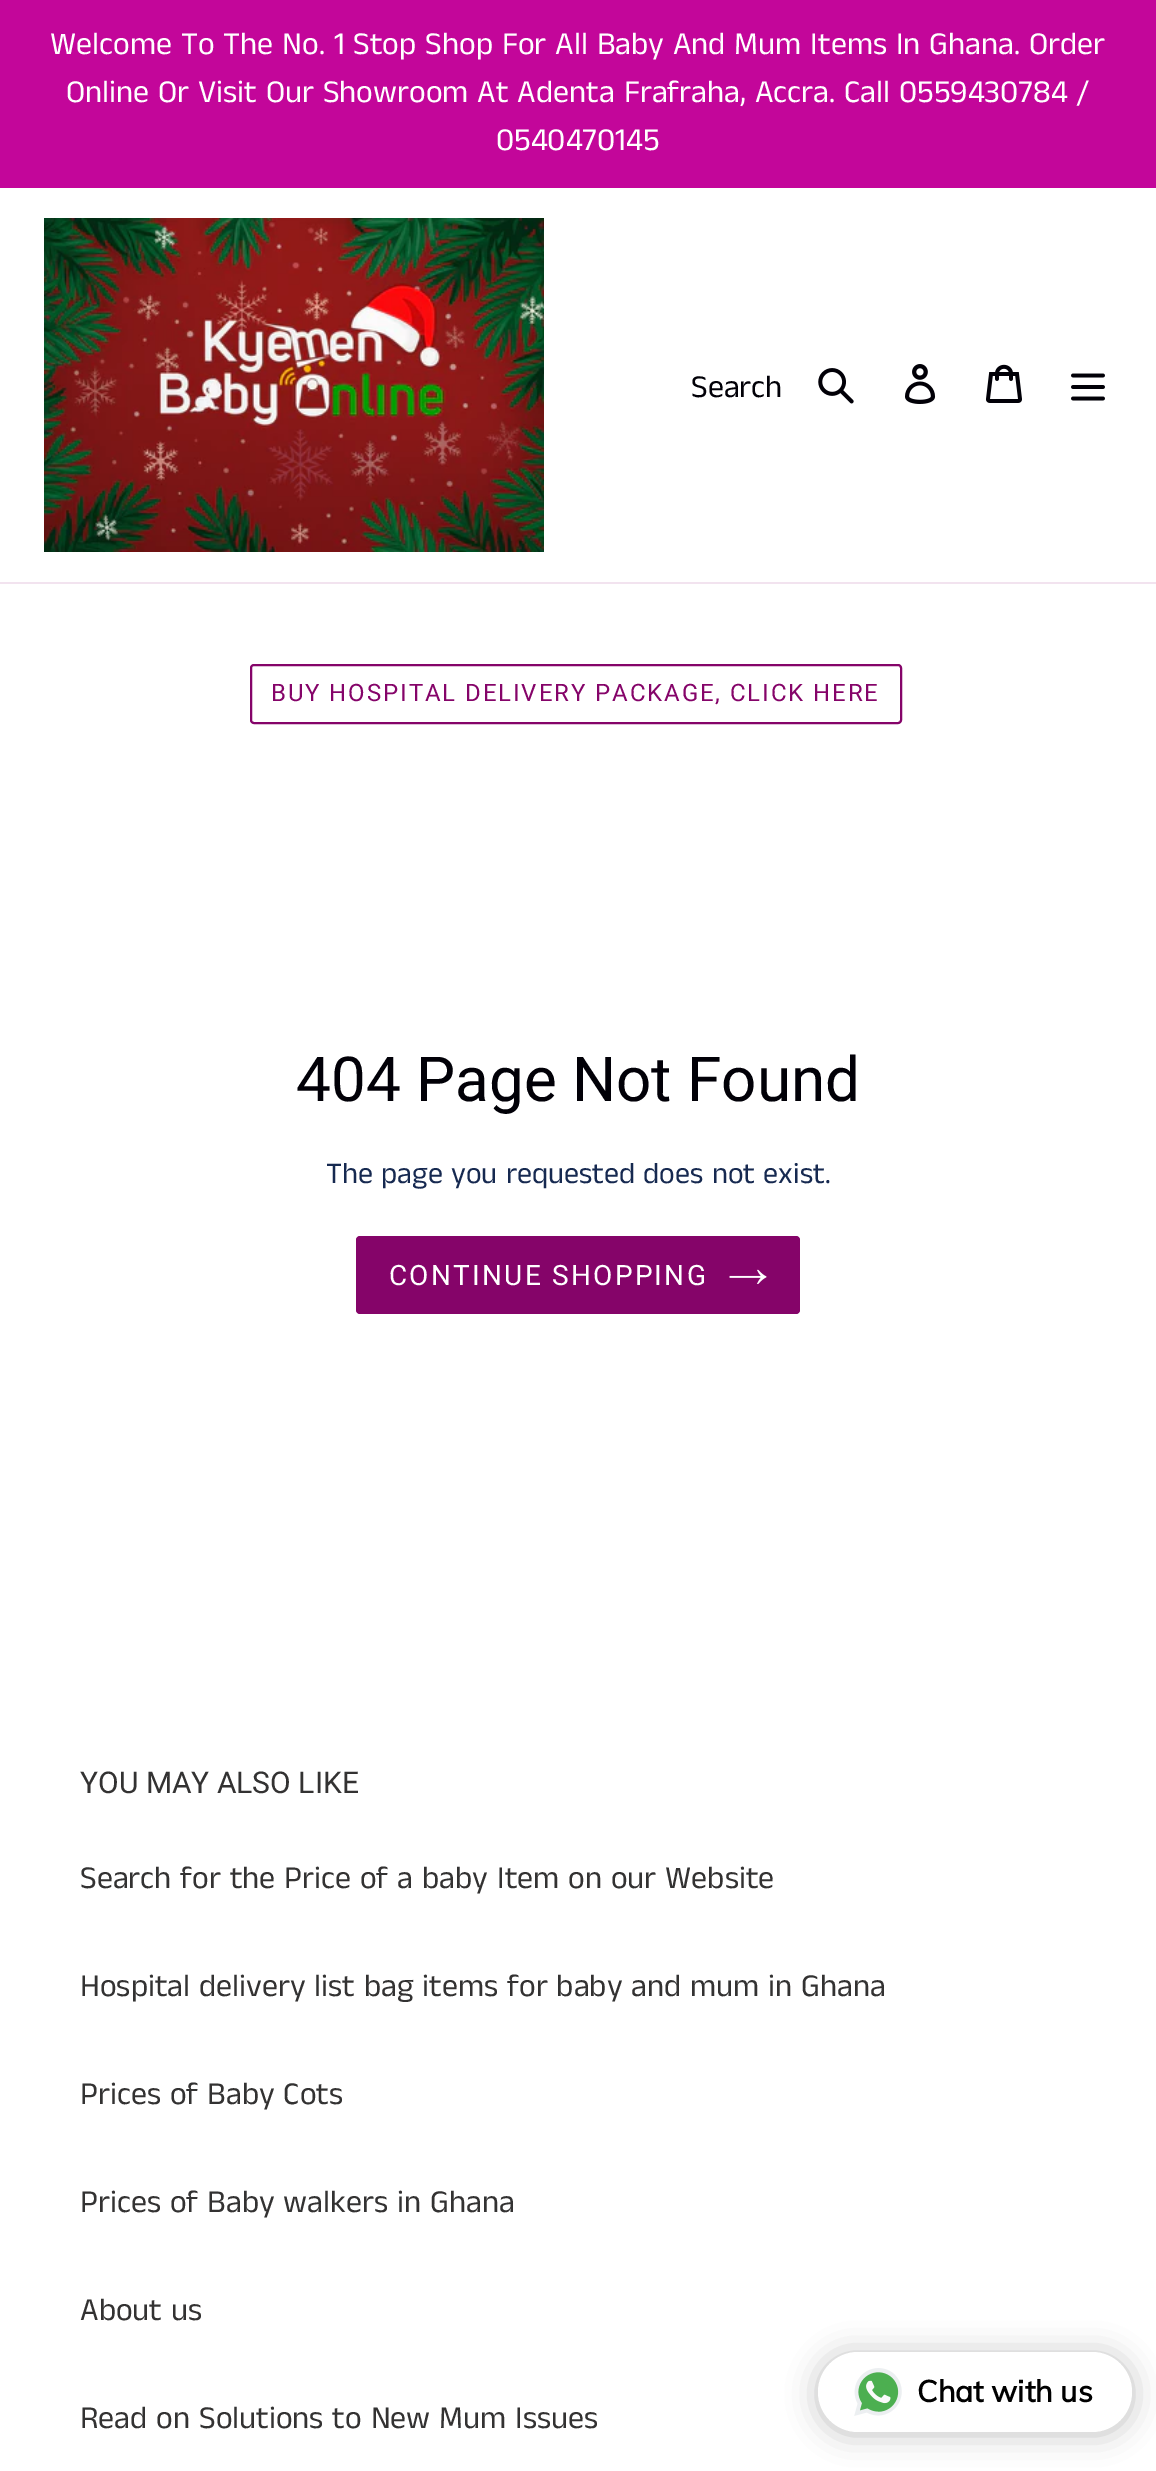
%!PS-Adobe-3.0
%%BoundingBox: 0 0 1156 2471
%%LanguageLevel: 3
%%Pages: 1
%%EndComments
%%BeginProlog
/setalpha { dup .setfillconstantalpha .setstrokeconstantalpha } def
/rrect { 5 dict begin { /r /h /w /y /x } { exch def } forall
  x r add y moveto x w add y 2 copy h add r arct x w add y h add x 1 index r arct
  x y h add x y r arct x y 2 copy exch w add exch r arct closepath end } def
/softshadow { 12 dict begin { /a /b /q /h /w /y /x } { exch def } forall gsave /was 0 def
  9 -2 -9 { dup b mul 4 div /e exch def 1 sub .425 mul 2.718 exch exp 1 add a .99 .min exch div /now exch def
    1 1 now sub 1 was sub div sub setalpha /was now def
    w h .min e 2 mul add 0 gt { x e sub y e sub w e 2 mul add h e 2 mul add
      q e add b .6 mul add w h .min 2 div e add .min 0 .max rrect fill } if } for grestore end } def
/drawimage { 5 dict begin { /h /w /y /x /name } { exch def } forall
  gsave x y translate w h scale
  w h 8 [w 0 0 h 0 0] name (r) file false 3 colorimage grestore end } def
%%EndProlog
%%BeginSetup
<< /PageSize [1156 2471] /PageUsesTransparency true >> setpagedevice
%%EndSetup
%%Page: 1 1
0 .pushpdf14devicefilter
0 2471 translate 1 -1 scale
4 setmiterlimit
1 setgray
0 0 1156 2471 rectfill
0.765 0.024 0.604 setrgbcolor
0 0 1156 188 rectfill
0.949 0.89 0.937 setrgbcolor
0 582 1156 2 rectfill
(images/1.raw) 44 218 500 334 drawimage
(images/2.raw) 818 368 36 36 drawimage
(images/3.raw) 905 364 31 40 drawimage
(images/4.raw) 986 364 36 39 drawimage
(images/5.raw) 1071 373 34 28 drawimage
0.522 0.016 0.412 setrgbcolor
2 setlinewidth
251 665 650 58 3 rrect stroke
356 1236 444 78 4 rrect fill
(images/6.raw) 729 1269 38 15 drawimage
0.125 0.129 0.141 setrgbcolor
818 2354 314 80 40 15 0.28 softshadow
1 setgray
818 2352 314 80 40 rrect fill
(images/7.raw) 854 2368 48 48 drawimage
/AnekTamil-Regular [32 0 0 -32 0 0] selectfont
50 54 moveto (Welcome To The No. 1 Stop Shop For All Baby And Mum Items In Ghana. Order) show
66 102 moveto (Online Or Visit Our Showroom At Adenta Frafraha, Accra. Call 0559430784 /) show
496 150 moveto (0540470145) show
0.004 0 0.027 setrgbcolor
691 397 moveto (Search) show
/Roboto-Regular [24 0 0 -24 0 0] selectfont
0.522 0.016 0.412 setrgbcolor
271 701 moveto 1.9 0 (BUY HOSPITAL DELIVERY PACKAGE, CLICK HERE) ashow
/Roboto-Regular [62 0 0 -62 0 0] selectfont
0.004 0 0.027 setrgbcolor
296 1101 moveto (404 Page Not Found) show
/AnekTamil-Regular [30 0 0 -30 0 0] selectfont
0.086 0.161 0.314 setrgbcolor
326 1183 moveto (The page you requested does not exist.) show
/Roboto-Regular [28 0 0 -28 0 0] selectfont
1 setgray
389 1285 moveto 2.25 0 (CONTINUE SHOPPING) ashow
/Roboto-Regular [30 0 0 -30 0 0] selectfont
0.2 0.196 0.196 setrgbcolor
80 1793 moveto (YOU MAY ALSO LIKE) show
/AnekTamil-Regular [32 0 0 -32 0 0] selectfont
80 1888 moveto (Search for the Price of a baby Item on our Website) show
80 1996 moveto (Hospital delivery list bag items for baby and mum in Ghana) show
80 2104 moveto (Prices of Baby Cots) show
80 2212 moveto (Prices of Baby walkers in Ghana) show
80 2320 moveto (About us) show
80 2428 moveto (Read on Solutions to New Mum Issues) show
/Muli-Bold [30 0 0 -30 0 0] selectfont
0 setgray
917 2402 moveto (Chat with us) show
.poppdf14devicefilter showpage
%%EOF
